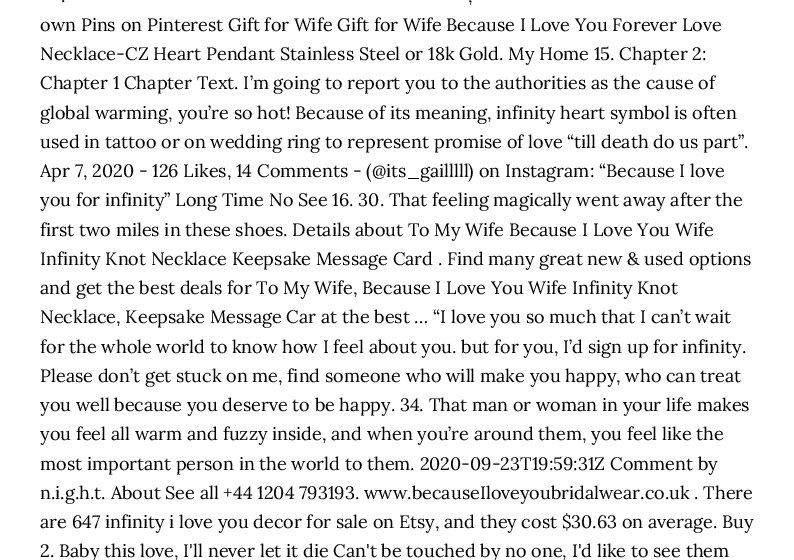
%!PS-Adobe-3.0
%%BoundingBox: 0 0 794 560
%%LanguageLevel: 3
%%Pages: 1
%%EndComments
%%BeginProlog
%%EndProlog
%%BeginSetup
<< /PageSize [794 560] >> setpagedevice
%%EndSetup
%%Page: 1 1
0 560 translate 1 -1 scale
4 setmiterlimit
1 setgray
0 0 794 560 rectfill
/Lora-Regular [18 0 0 -18 0 0] selectfont
0 setgray
61 2 moveto (.) show
468 2 moveto (,) show
40 31 moveto (own Pins on Pinterest Gift for Wife Gift for Wife Because I Love You Forever Love) show
40 60 moveto (Necklace-CZ Heart Pendant Stainless Steel or 18k Gold. My Home 15. Chapter 2:) show
40 89 moveto (Chapter 1 Chapter Text. I’m going to report you to the authorities as the cause of) show
40 119 moveto (global warming, you’re so hot! Because of its meaning, infinity heart symbol is often) show
40 148 moveto (used in tattoo or on wedding ring to represent promise of love “till death do us part”.) show
40 177 moveto (Apr 7, 2020 - 126 Likes, 14 Comments - \(@its_gailllll\) on Instagram: “Because I love) show
40 206 moveto (you for infinity” Long Time No See 16. 30. That feeling magically went away after the) show
40 236 moveto (first two miles in these shoes. Details about To My Wife Because I Love You Wife) show
40 265 moveto (Infinity Knot Necklace Keepsake Message Card . Find many great new & used options) show
40 294 moveto (and get the best deals for To My Wife, Because I Love You Wife Infinity Knot) show
40 323 moveto (Necklace, Keepsake Message Car at the best … “I love you so much that I can’t wait) show
40 353 moveto (for the whole world to know how I feel about you. but for you, I’d sign up for infinity.) show
40 382 moveto (Please don’t get stuck on me, find someone who will make you happy, who can treat) show
40 411 moveto (you well because you deserve to be happy. 34. That man or woman in your life makes) show
40 440 moveto (you feel all warm and fuzzy inside, and when you’re around them, you feel like the) show
40 470 moveto (most important person in the world to them. 2020-09-23T19:59:31Z Comment by) show
40 499 moveto (n.i.g.h.t. About See all +44 1204 793193. www.becauseIloveyoubridalwear.co.uk . There) show
40 528 moveto (are 647 infinity i love you decor for sale on Etsy, and they cost $30.63 on average. Buy) show
40 557 moveto (2. Baby this love, I'll never let it die Can't be touched by no one, I'd like to see them) show
showpage
%%EOF
